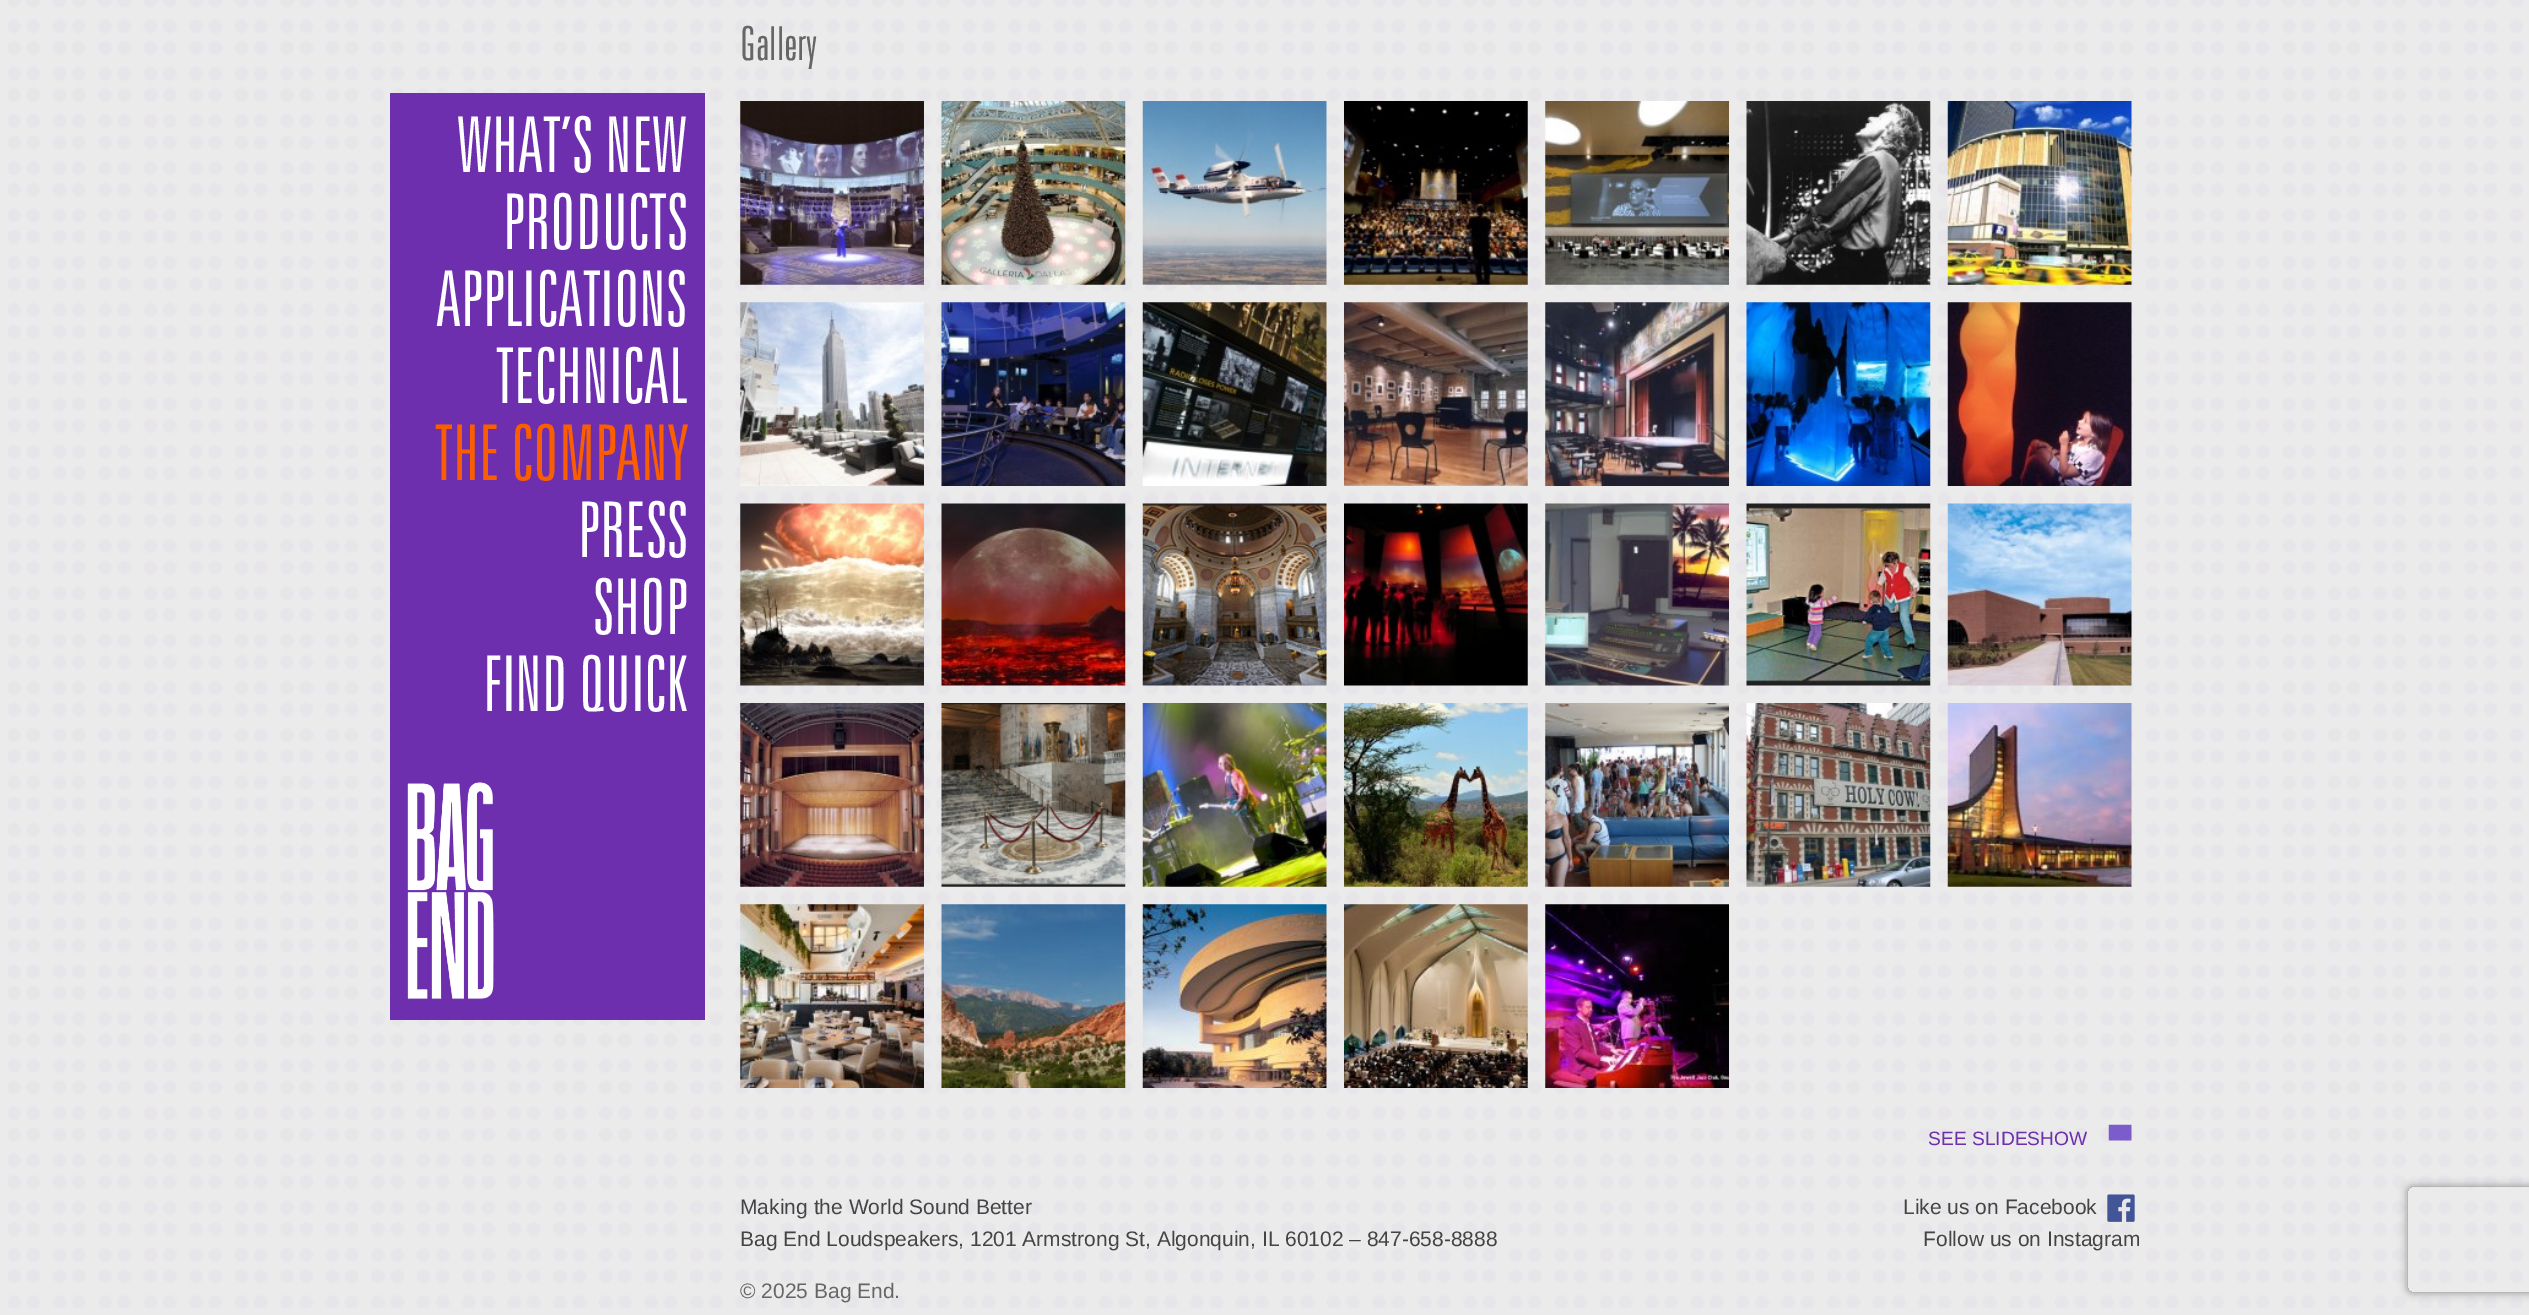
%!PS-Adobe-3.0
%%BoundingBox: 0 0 2529 1315
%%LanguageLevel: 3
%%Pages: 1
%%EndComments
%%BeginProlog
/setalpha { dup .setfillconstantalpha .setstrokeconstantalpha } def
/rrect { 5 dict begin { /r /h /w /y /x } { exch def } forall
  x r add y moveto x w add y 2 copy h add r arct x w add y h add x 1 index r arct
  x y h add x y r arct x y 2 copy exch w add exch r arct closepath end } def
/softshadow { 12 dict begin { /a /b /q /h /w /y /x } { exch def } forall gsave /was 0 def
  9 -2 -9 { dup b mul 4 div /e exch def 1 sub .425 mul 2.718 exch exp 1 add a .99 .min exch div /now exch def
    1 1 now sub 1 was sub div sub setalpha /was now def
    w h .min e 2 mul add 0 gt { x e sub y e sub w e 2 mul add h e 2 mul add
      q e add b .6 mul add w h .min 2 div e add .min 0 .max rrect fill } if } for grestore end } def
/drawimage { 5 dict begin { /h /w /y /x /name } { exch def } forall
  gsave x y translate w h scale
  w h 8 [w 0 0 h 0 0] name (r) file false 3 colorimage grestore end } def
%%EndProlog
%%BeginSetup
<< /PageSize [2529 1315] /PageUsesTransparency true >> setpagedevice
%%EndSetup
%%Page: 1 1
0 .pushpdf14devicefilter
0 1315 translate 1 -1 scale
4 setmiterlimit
0.922 setgray
0 0 2529 1315 rectfill
(images/1.raw) 8 0 2515 1308 drawimage
0.431 0.184 0.682 setrgbcolor
390 93 315 927 rectfill
(images/2.raw) 407 782 87 218 drawimage
(images/3.raw) 740 101 184 184 drawimage
(images/4.raw) 941 101 185 184 drawimage
(images/5.raw) 1142 101 185 184 drawimage
(images/6.raw) 1344 101 184 184 drawimage
(images/7.raw) 1545 101 184 184 drawimage
(images/8.raw) 1746 101 185 184 drawimage
(images/9.raw) 1947 101 185 184 drawimage
(images/10.raw) 740 302 184 184 drawimage
(images/11.raw) 941 302 185 184 drawimage
(images/12.raw) 1142 302 185 184 drawimage
(images/13.raw) 1344 302 184 184 drawimage
(images/14.raw) 1545 302 184 184 drawimage
(images/15.raw) 1746 302 185 184 drawimage
(images/16.raw) 1947 302 185 184 drawimage
(images/17.raw) 740 503 184 183 drawimage
(images/18.raw) 941 503 185 183 drawimage
(images/19.raw) 1142 503 185 183 drawimage
(images/20.raw) 1344 503 184 183 drawimage
(images/21.raw) 1545 503 184 183 drawimage
(images/22.raw) 1746 503 185 183 drawimage
(images/23.raw) 1947 503 185 183 drawimage
(images/24.raw) 740 703 184 184 drawimage
(images/25.raw) 941 703 185 184 drawimage
(images/26.raw) 1142 703 185 184 drawimage
(images/27.raw) 1344 703 184 184 drawimage
(images/28.raw) 1545 703 184 184 drawimage
(images/29.raw) 1746 703 185 184 drawimage
(images/30.raw) 1947 703 185 184 drawimage
(images/31.raw) 740 904 184 184 drawimage
(images/32.raw) 941 904 185 184 drawimage
(images/33.raw) 1142 904 185 184 drawimage
(images/34.raw) 1344 904 184 184 drawimage
(images/35.raw) 1545 904 184 184 drawimage
(images/36.raw) 2108 1124 24 17 drawimage
(images/37.raw) 2107 1194 28 28 drawimage
gsave
newpath 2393 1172 moveto 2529 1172 lineto 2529 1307 lineto 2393 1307 lineto closepath 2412 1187 moveto 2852 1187 lineto 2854 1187 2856 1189 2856 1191 curveto 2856 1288 lineto 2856 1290 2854 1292 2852 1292 curveto 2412 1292 lineto 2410 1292 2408 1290 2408 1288 curveto 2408 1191 lineto 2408 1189 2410 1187 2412 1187 curveto closepath eoclip newpath
0.502 setgray
2408 1187 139 105 4 4.5 1 softshadow
grestore
/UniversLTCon-Light [47 0 0 -47 0 0] selectfont
0.4 setgray
740 60 moveto (Gallery) show
/UniversLTCon-Light [77 0 0 -77 0 0] selectfont
1 setgray
457 172 moveto (WHAT’S NEW) show
503 249 moveto (PRODUCTS) show
436 326 moveto (APPLICATIONS) show
496 403 moveto (TECHNICAL) show
0.98 0.369 0 setrgbcolor
435 480 moveto (THE COMPANY) show
1 setgray
578 557 moveto (PRESS) show
593 634 moveto (SHOP) show
483 711 moveto (FIND QUICK) show
/LiberationSans-Regular [19.25 0 0 -19.25 0 0] selectfont
0.431 0.184 0.682 setrgbcolor
1928 1145 moveto (SEE SLIDESHOW) show
/LiberationSans-Regular [21 0 0 -21 0 0] selectfont
0.267 setgray
740 1214 moveto (Making the World Sound Better) show
740 1246 moveto (Bag End Loudspeakers, 1201 Armstrong St, Algonquin, IL 60102 – 847-658-8888) show
1903 1214 moveto (Like us on Facebook) show
1923 1246 moveto (Follow us on Instagram) show
0.4 setgray
740 1298 moveto (© 2025 Bag End.) show
.poppdf14devicefilter showpage
%%EOF
